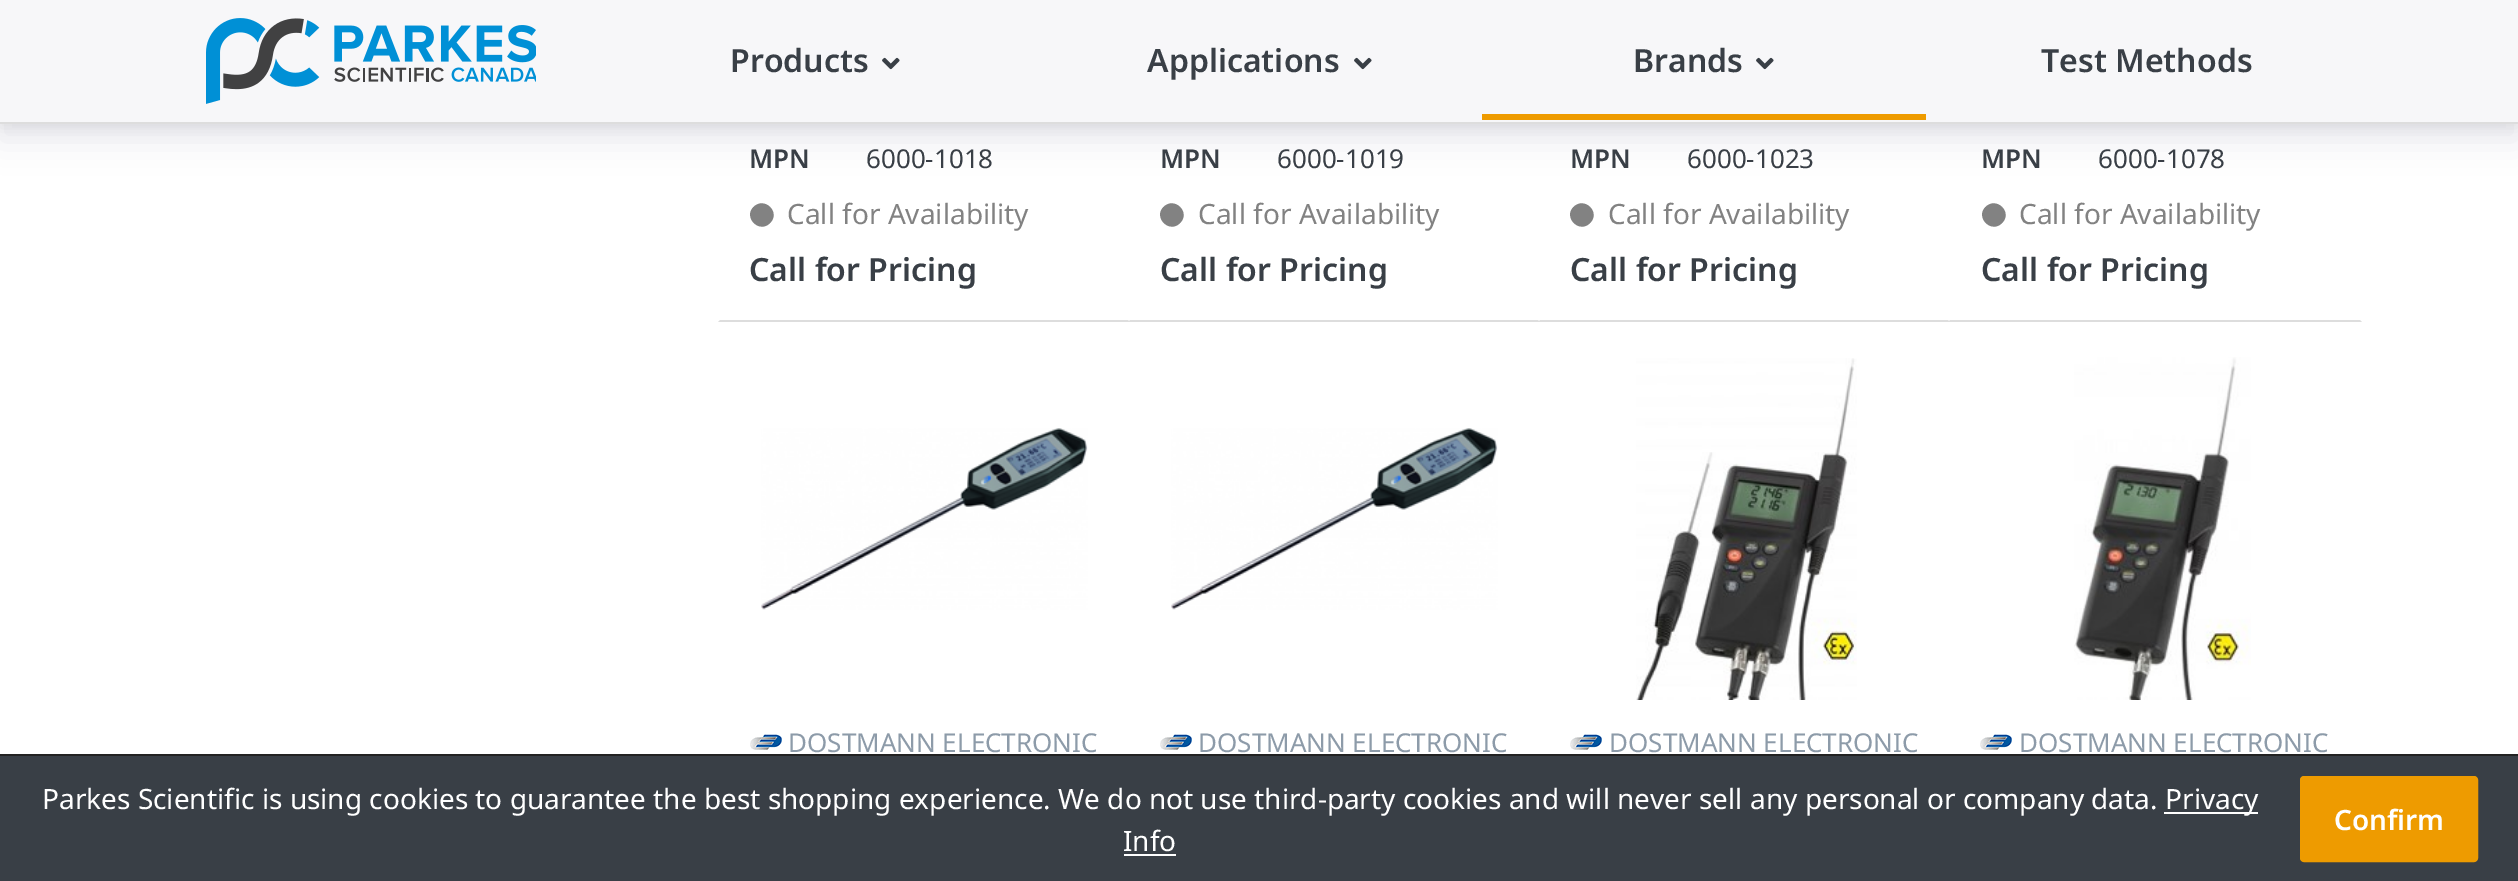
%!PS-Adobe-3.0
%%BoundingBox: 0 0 2518 881
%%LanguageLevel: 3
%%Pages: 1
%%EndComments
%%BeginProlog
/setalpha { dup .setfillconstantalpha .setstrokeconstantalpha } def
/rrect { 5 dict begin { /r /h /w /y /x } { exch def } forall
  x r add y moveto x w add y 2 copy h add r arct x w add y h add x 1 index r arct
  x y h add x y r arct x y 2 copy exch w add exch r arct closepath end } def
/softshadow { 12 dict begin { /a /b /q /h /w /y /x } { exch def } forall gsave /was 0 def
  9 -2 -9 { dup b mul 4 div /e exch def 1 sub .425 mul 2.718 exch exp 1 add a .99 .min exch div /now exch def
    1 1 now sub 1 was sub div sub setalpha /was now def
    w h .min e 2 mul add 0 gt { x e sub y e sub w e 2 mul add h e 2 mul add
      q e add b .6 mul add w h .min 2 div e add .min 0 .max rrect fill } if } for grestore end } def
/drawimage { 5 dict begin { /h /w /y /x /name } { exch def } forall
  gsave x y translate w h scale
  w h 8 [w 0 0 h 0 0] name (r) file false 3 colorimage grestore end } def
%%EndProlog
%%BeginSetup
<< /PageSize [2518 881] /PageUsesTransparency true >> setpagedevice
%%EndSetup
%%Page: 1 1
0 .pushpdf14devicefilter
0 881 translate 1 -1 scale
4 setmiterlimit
1 setgray
0 0 2518 881 rectfill
0 setgray
0 4 2518 124 0 7 0.07 softshadow
0.196 0.196 0.365 setrgbcolor
0 16 2518 124 0 16 0.1 softshadow
0.969 0.969 0.976 setrgbcolor
0 0 2518 122 rectfill
0.867 setgray
0 122 2518 2 rectfill
(images/1.raw) 206 18 330 86 drawimage
(images/2.raw) 882 57 18 13 drawimage
(images/2.raw) 1354 57 18 13 drawimage
(images/2.raw) 1756 57 18 13 drawimage
0.933 0.608 0 setrgbcolor
1482 114 444 6 rectfill
0.867 setgray
newpath 1130 322 moveto 718 322 lineto 720 320 lineto 1128 320 lineto closepath fill
0.51 setgray
newpath 753.5 207 moveto 764.5 196 781 212.5 770 223 curveto 759.5 234 743 217.5 753.5 207 curveto closepath fill
0.867 setgray
newpath 1540 322 moveto 1128 322 lineto 1130 320 lineto 1538 320 lineto closepath fill
0.51 setgray
newpath 1163.5 207 moveto 1174.5 196 1191 212.5 1180 223 curveto 1169.5 234 1153 217.5 1163.5 207 curveto closepath fill
0.867 setgray
newpath 1950 322 moveto 1538 322 lineto 1540 320 lineto 1948 320 lineto closepath fill
0.51 setgray
newpath 1573.5 207 moveto 1584.5 196 1601 212.5 1590 223 curveto 1579.5 234 1563 217.5 1573.5 207 curveto closepath fill
0.867 setgray
newpath 2362 322 moveto 1948 322 lineto 1950 320 lineto 2360 320 lineto closepath fill
0.51 setgray
newpath 1985.5 207 moveto 1996.5 196 2013 212.5 2002 223 curveto 1991.5 234 1975 217.5 1985.5 207 curveto closepath fill
(images/3.raw) 761 428 327 182 drawimage
(images/4.raw) 750 734 32 16 drawimage
(images/5.raw) 1171 428 327 182 drawimage
(images/4.raw) 1160 734 32 16 drawimage
(images/6.raw) 1636 358 221 342 drawimage
(images/4.raw) 1570 734 32 16 drawimage
(images/7.raw) 2074 357 177 343 drawimage
(images/4.raw) 1980 734 32 16 drawimage
0.224 0.247 0.275 setrgbcolor
0 756 2518 125 rectfill
0.133 setgray
0 754 2518 2 rectfill
1 setgray
2164 812 94 2 rectfill
1124 854 52 2 rectfill
0.933 0.608 0 setrgbcolor
2301 777 176 84 3 rrect gsave fill grestore
2 setlinewidth
stroke
/NotoSans-SemiBold [32 0 0 -32 0 0] selectfont
0.224 0.247 0.275 setrgbcolor
730 72 moveto (Products) show
1147 72 moveto (Applications) show
1633 72 moveto (Brands) show
2041 72 moveto (Test Methods) show
/NotoSans-SemiBold [26 0 0 -26 0 0] selectfont
749 168 moveto (MPN) show
/NotoSans-Regular [26 0 0 -26 0 0] selectfont
866 168 moveto (6000-1018) show
/NotoSans-Regular [28 0 0 -28 0 0] selectfont
0.51 setgray
787 224 moveto (Call for Availability) show
/NotoSans-SemiBold [32 0 0 -32 0 0] selectfont
0.224 0.247 0.275 setrgbcolor
749 281 moveto (Call for Pricing) show
/NotoSans-SemiBold [26 0 0 -26 0 0] selectfont
1160 168 moveto (MPN) show
/NotoSans-Regular [26 0 0 -26 0 0] selectfont
1277 168 moveto (6000-1019) show
/NotoSans-Regular [28 0 0 -28 0 0] selectfont
0.51 setgray
1198 224 moveto (Call for Availability) show
/NotoSans-SemiBold [32 0 0 -32 0 0] selectfont
0.224 0.247 0.275 setrgbcolor
1160 281 moveto (Call for Pricing) show
/NotoSans-SemiBold [26 0 0 -26 0 0] selectfont
1570 168 moveto (MPN) show
/NotoSans-Regular [26 0 0 -26 0 0] selectfont
1687 168 moveto (6000-1023) show
/NotoSans-Regular [28 0 0 -28 0 0] selectfont
0.51 setgray
1608 224 moveto (Call for Availability) show
/NotoSans-SemiBold [32 0 0 -32 0 0] selectfont
0.224 0.247 0.275 setrgbcolor
1570 281 moveto (Call for Pricing) show
/NotoSans-SemiBold [26 0 0 -26 0 0] selectfont
1981 168 moveto (MPN) show
/NotoSans-Regular [26 0 0 -26 0 0] selectfont
2098 168 moveto (6000-1078) show
/NotoSans-Regular [28 0 0 -28 0 0] selectfont
0.51 setgray
2019 224 moveto (Call for Availability) show
/NotoSans-SemiBold [32 0 0 -32 0 0] selectfont
0.224 0.247 0.275 setrgbcolor
1981 281 moveto (Call for Pricing) show
/NotoSans-Regular [26 0 0 -26 0 0] selectfont
0.553 0.608 0.663 setrgbcolor
788 752 moveto (DOSTMANN ELECTRONIC) show
1198 752 moveto (DOSTMANN ELECTRONIC) show
1609 752 moveto (DOSTMANN ELECTRONIC) show
2019 752 moveto (DOSTMANN ELECTRONIC) show
/NotoSans-Regular [28 0 0 -28 0 0] selectfont
1 setgray
42 809 moveto (Parkes Scientific is using cookies to guarantee the best shopping experience. We do not use third-party cookies and will never sell any personal or company data.) show
2165 809 moveto (Privacy) show
1123 851 moveto (Info) show
/NotoSans-SemiBold [28 0 0 -28 0 0] selectfont
2334 830 moveto (Confirm) show
.poppdf14devicefilter showpage
%%EOF
